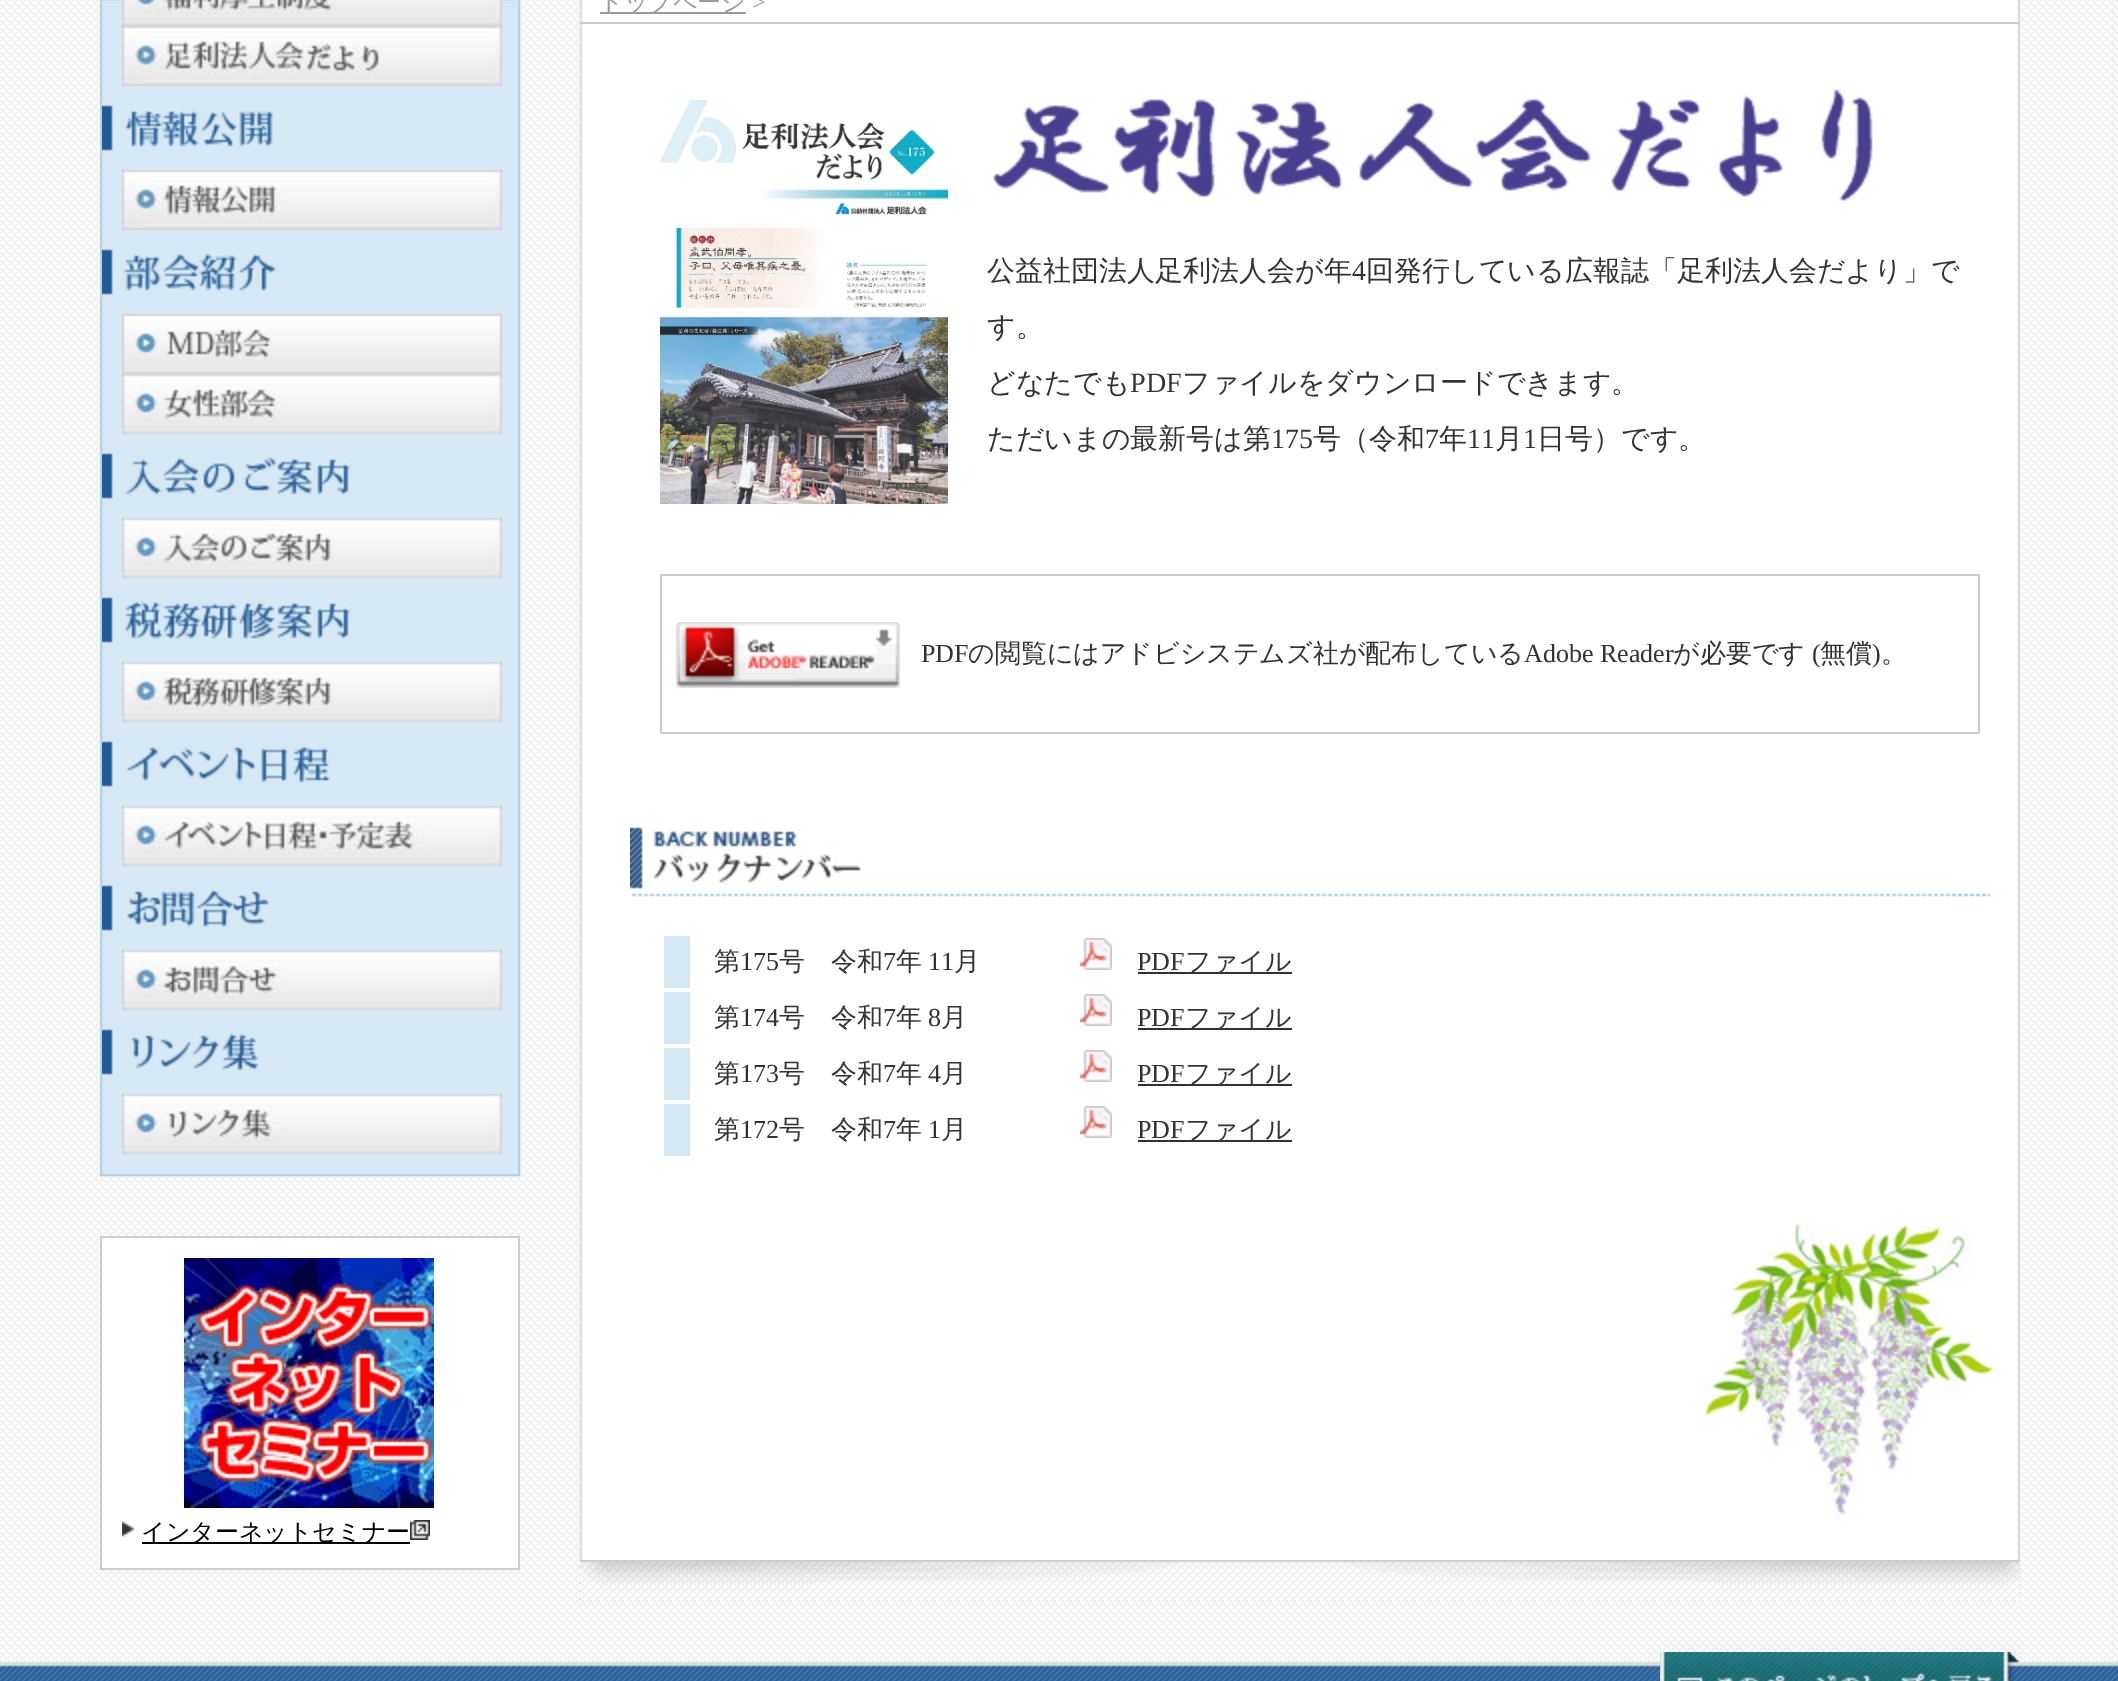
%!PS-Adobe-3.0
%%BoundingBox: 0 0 2118 1681
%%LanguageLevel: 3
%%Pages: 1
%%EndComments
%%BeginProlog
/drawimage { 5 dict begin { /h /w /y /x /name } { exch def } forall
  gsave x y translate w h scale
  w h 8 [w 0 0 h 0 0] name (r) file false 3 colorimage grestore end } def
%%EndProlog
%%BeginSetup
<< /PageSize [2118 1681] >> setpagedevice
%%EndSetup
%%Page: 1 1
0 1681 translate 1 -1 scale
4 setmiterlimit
1 setgray
0 0 2118 1681 rectfill
(images/1.raw) 0 0 2118 1662 drawimage
(images/2.raw) 579 0 1441 1602 drawimage
0.8 setgray
580 22 1440 2 rectfill
0.6 setgray
600 12 146 2 rectfill
(images/3.raw) 1700 1218 300 302 drawimage
(images/4.raw) 660 100 288 404 drawimage
(images/5.raw) 993 89 880 112 drawimage
0.8 setgray
660 574 1320 2 rectfill
1978 574 2 160 rectfill
660 732 1320 2 rectfill
660 574 2 160 rectfill
(images/6.raw) 676 622 224 66 drawimage
(images/7.raw) 630 827 1360 70 drawimage
0.839 0.91 0.953 setrgbcolor
664 936 26 52 rectfill
(images/8.raw) 1080 938 32 32 drawimage
0.2 setgray
1138 972 154 2 rectfill
0.839 0.91 0.953 setrgbcolor
664 992 26 52 rectfill
(images/8.raw) 1080 994 32 32 drawimage
0.2 setgray
1138 1028 154 2 rectfill
0.839 0.91 0.953 setrgbcolor
664 1048 26 52 rectfill
(images/8.raw) 1080 1050 32 32 drawimage
0.2 setgray
1138 1084 154 2 rectfill
0.839 0.91 0.953 setrgbcolor
664 1104 26 52 rectfill
(images/8.raw) 1080 1106 32 32 drawimage
0.2 setgray
1138 1140 154 2 rectfill
(images/9.raw) 580 1560 1440 42 drawimage
0.839 0.91 0.953 setrgbcolor
newpath 101 -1 moveto 519 -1 lineto 519 1175 lineto 101 1175 lineto closepath gsave fill grestore
0.694 0.827 0.91 setrgbcolor
2 setlinewidth
stroke
(images/10.raw) 122 0 380 26 drawimage
(images/11.raw) 122 26 380 60 drawimage
(images/12.raw) 102 105 172 46 drawimage
(images/13.raw) 122 170 380 60 drawimage
(images/14.raw) 102 249 175 46 drawimage
(images/15.raw) 122 314 380 60 drawimage
(images/16.raw) 122 374 380 60 drawimage
(images/17.raw) 102 453 249 46 drawimage
(images/18.raw) 122 518 380 60 drawimage
(images/19.raw) 102 597 249 46 drawimage
(images/20.raw) 122 662 380 60 drawimage
(images/21.raw) 102 741 229 46 drawimage
(images/22.raw) 122 806 380 60 drawimage
(images/23.raw) 102 885 167 46 drawimage
(images/24.raw) 122 950 380 60 drawimage
(images/25.raw) 102 1029 157 46 drawimage
(images/26.raw) 122 1094 380 60 drawimage
1 setgray
102 1238 416 330 rectfill
0.8 setgray
100 1236 420 2 rectfill
518 1236 2 334 rectfill
100 1236 2 334 rectfill
(images/27.raw) 184 1258 250 250 drawimage
102 1568 416 2 rectfill
(images/28.raw) 122 1521 13 16 drawimage
0 setgray
142 1542 268 2 rectfill
(images/29.raw) 410 1520 20 20 drawimage
(images/30.raw) 0 1662 2118 19 drawimage
(images/31.raw) 1660 1652 360 29 drawimage
/WenQuanYiZenHei-Medium [24 0 0 -24 0 0] selectfont
0.6 setgray
599 10 moveto (トップページ) show
/LiberationSerif-Regular [24 0 0 -24 0 0] selectfont
752 10 moveto (>) show
/WenQuanYiZenHei-Medium [28 0 0 -28 0 0] selectfont
0.2 setgray
987 280 moveto (公益社団法人足利法人会が年) show
/LiberationSerif-Regular [28 0 0 -28 0 0] selectfont
1352 280 moveto (4) show
/WenQuanYiZenHei-Medium [28 0 0 -28 0 0] selectfont
1366 280 moveto (回発行している広報誌「足利法人会だより」で) show
987 336 moveto (す。) show
987 392 moveto (どなたでも) show
/LiberationSerif-Regular [28 0 0 -28 0 0] selectfont
1130 392 moveto (PDF) show
/WenQuanYiZenHei-Medium [28 0 0 -28 0 0] selectfont
1182 392 moveto (ファイルをダウンロードできます。) show
987 448 moveto (ただいまの最新号は第) show
/LiberationSerif-Regular [28 0 0 -28 0 0] selectfont
1271 448 moveto (175) show
/WenQuanYiZenHei-Medium [28 0 0 -28 0 0] selectfont
1313 448 moveto (号（令和) show
/LiberationSerif-Regular [28 0 0 -28 0 0] selectfont
1425 448 moveto (7) show
/WenQuanYiZenHei-Medium [28 0 0 -28 0 0] selectfont
1439 448 moveto (年) show
/LiberationSerif-Regular [28 0 0 -28 0 0] selectfont
1467 448 moveto (11) show
/WenQuanYiZenHei-Medium [28 0 0 -28 0 0] selectfont
1495 448 moveto (月) show
/LiberationSerif-Regular [28 0 0 -28 0 0] selectfont
1523 448 moveto (1) show
/WenQuanYiZenHei-Medium [28 0 0 -28 0 0] selectfont
1537 448 moveto (日号）です。) show
/LiberationSerif-Regular [26 0 0 -26 0 0] selectfont
921 662 moveto (PDF) show
/WenQuanYiZenHei-Medium [26 0 0 -26 0 0] selectfont
968 662 moveto (の閲覧にはアドビシステムズ社が配布している) show
/LiberationSerif-Regular [26 0 0 -26 0 0] selectfont
1524 662 moveto (Adobe Reader) show
/WenQuanYiZenHei-Medium [26 0 0 -26 0 0] selectfont
1673 662 moveto (が必要です) show
/LiberationSerif-Regular [26 0 0 -26 0 0] selectfont
1812 662 moveto (\() show
/WenQuanYiZenHei-Medium [26 0 0 -26 0 0] selectfont
1820 662 moveto (無償) show
/LiberationSerif-Regular [26 0 0 -26 0 0] selectfont
1872 662 moveto (\)) show
/WenQuanYiZenHei-Medium [26 0 0 -26 0 0] selectfont
1881 662 moveto (。) show
714 970 moveto (第) show
/LiberationSerif-Regular [26 0 0 -26 0 0] selectfont
740 970 moveto (175) show
/WenQuanYiZenHei-Medium [26 0 0 -26 0 0] selectfont
779 970 moveto (号　令和) show
/LiberationSerif-Regular [26 0 0 -26 0 0] selectfont
883 970 moveto (7) show
/WenQuanYiZenHei-Medium [26 0 0 -26 0 0] selectfont
896 970 moveto (年) show
/LiberationSerif-Regular [26 0 0 -26 0 0] selectfont
928 970 moveto (11) show
/WenQuanYiZenHei-Medium [26 0 0 -26 0 0] selectfont
954 970 moveto (月) show
/LiberationSerif-Regular [26 0 0 -26 0 0] selectfont
1137 970 moveto (PDF) show
/WenQuanYiZenHei-Medium [26 0 0 -26 0 0] selectfont
1185 970 moveto (ファイル) show
714 1026 moveto (第) show
/LiberationSerif-Regular [26 0 0 -26 0 0] selectfont
740 1026 moveto (174) show
/WenQuanYiZenHei-Medium [26 0 0 -26 0 0] selectfont
779 1026 moveto (号　令和) show
/LiberationSerif-Regular [26 0 0 -26 0 0] selectfont
883 1026 moveto (7) show
/WenQuanYiZenHei-Medium [26 0 0 -26 0 0] selectfont
896 1026 moveto (年) show
/LiberationSerif-Regular [26 0 0 -26 0 0] selectfont
928 1026 moveto (8) show
/WenQuanYiZenHei-Medium [26 0 0 -26 0 0] selectfont
941 1026 moveto (月) show
/LiberationSerif-Regular [26 0 0 -26 0 0] selectfont
1137 1026 moveto (PDF) show
/WenQuanYiZenHei-Medium [26 0 0 -26 0 0] selectfont
1185 1026 moveto (ファイル) show
714 1082 moveto (第) show
/LiberationSerif-Regular [26 0 0 -26 0 0] selectfont
740 1082 moveto (173) show
/WenQuanYiZenHei-Medium [26 0 0 -26 0 0] selectfont
779 1082 moveto (号　令和) show
/LiberationSerif-Regular [26 0 0 -26 0 0] selectfont
883 1082 moveto (7) show
/WenQuanYiZenHei-Medium [26 0 0 -26 0 0] selectfont
896 1082 moveto (年) show
/LiberationSerif-Regular [26 0 0 -26 0 0] selectfont
928 1082 moveto (4) show
/WenQuanYiZenHei-Medium [26 0 0 -26 0 0] selectfont
941 1082 moveto (月) show
/LiberationSerif-Regular [26 0 0 -26 0 0] selectfont
1137 1082 moveto (PDF) show
/WenQuanYiZenHei-Medium [26 0 0 -26 0 0] selectfont
1185 1082 moveto (ファイル) show
714 1138 moveto (第) show
/LiberationSerif-Regular [26 0 0 -26 0 0] selectfont
740 1138 moveto (172) show
/WenQuanYiZenHei-Medium [26 0 0 -26 0 0] selectfont
779 1138 moveto (号　令和) show
/LiberationSerif-Regular [26 0 0 -26 0 0] selectfont
883 1138 moveto (7) show
/WenQuanYiZenHei-Medium [26 0 0 -26 0 0] selectfont
896 1138 moveto (年) show
/LiberationSerif-Regular [26 0 0 -26 0 0] selectfont
928 1138 moveto (1) show
/WenQuanYiZenHei-Medium [26 0 0 -26 0 0] selectfont
941 1138 moveto (月) show
/LiberationSerif-Regular [26 0 0 -26 0 0] selectfont
1137 1138 moveto (PDF) show
/WenQuanYiZenHei-Medium [26 0 0 -26 0 0] selectfont
1185 1138 moveto (ファイル) show
/WenQuanYiZenHei-Medium [24 0 0 -24 0 0] selectfont
0 setgray
141 1540 moveto (インターネットセミナー) show
showpage
%%EOF
